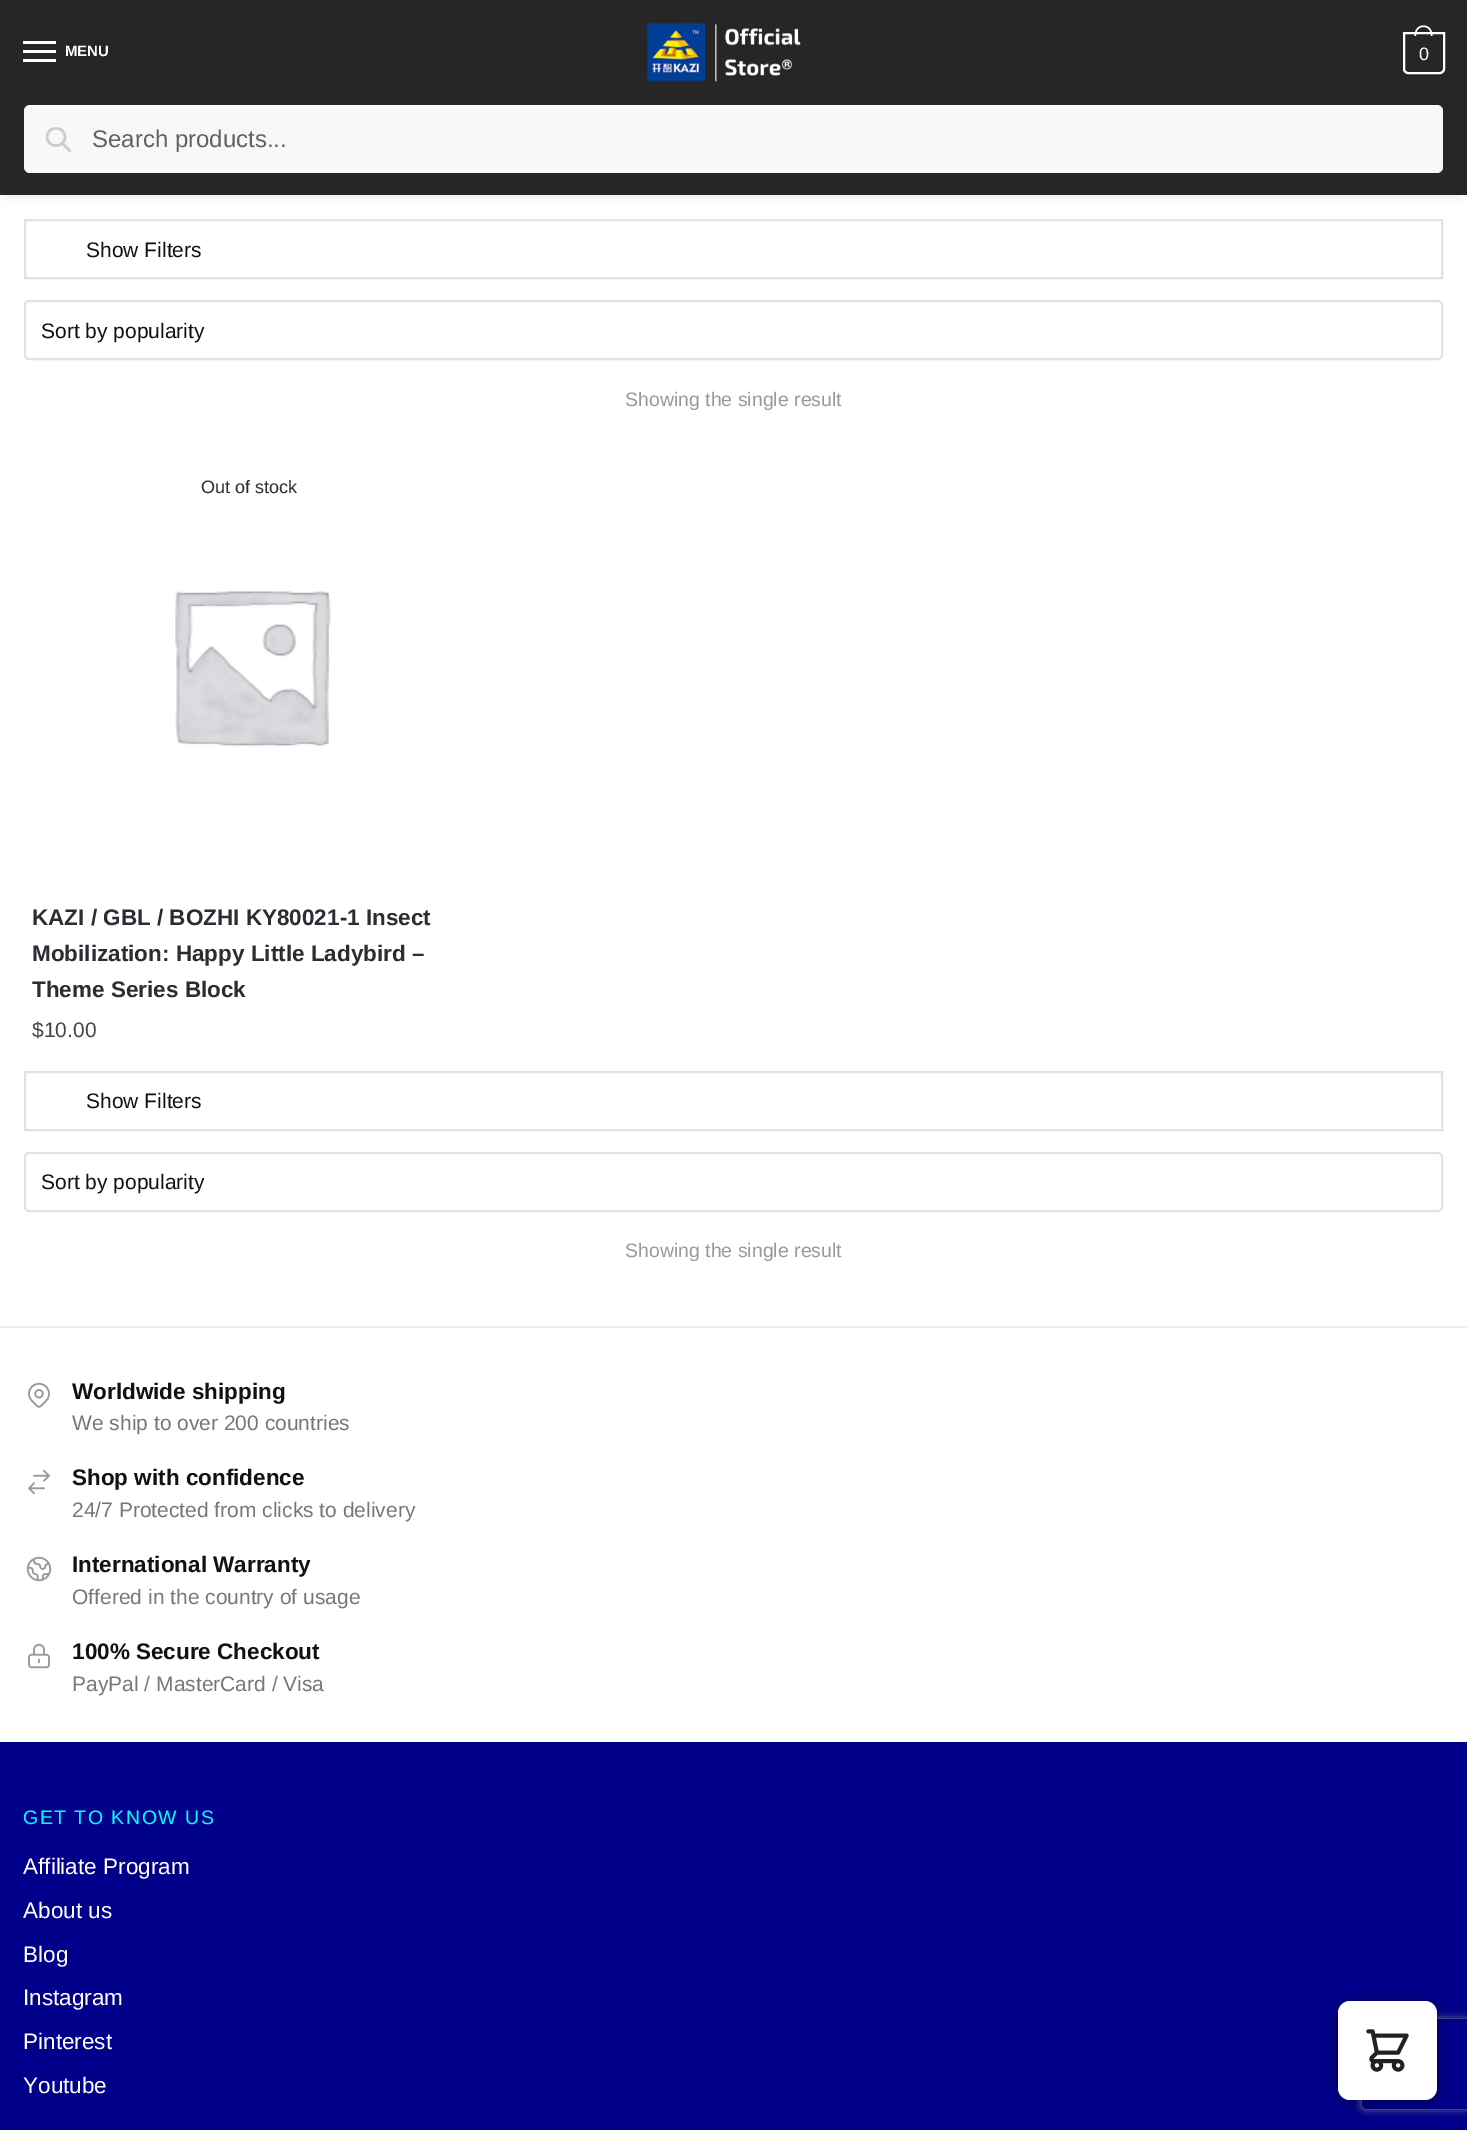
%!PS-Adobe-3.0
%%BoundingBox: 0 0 1467 2130
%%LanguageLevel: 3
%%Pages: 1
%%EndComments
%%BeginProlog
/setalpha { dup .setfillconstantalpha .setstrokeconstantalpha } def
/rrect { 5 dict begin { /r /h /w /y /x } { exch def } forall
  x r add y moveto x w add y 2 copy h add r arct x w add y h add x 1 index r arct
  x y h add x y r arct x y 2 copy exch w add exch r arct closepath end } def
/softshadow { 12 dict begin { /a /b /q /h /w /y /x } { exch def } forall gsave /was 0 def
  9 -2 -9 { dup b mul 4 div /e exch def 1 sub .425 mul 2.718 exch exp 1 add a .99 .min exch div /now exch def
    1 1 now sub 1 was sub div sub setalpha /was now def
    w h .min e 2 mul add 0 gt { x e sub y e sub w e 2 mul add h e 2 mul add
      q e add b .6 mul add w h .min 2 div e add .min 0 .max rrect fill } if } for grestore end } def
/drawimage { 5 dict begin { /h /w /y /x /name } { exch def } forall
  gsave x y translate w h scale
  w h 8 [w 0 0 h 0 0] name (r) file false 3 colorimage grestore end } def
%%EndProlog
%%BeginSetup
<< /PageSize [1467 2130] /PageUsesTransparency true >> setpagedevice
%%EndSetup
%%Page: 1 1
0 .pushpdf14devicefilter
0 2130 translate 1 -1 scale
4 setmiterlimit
1 setgray
0 0 1467 2130 rectfill
0.149 setgray
0 0 1467 105 rectfill
1 setgray
23 41 33 3 rectfill
23 50 33 3 rectfill
23 59 33 3 rectfill
(images/1.raw) 647 22 154 60 drawimage
2 setlinewidth
newpath 1404 33 moveto 1444 33 lineto 1444 69 lineto 1444 71 1442 73 1440 73 curveto 1408 73 lineto 1406 73 1404 71 1404 69 curveto closepath stroke
newpath 1423.5 25.5 moveto 1429.5 25.5 1432.5 30.5 1432.5 36 curveto 1414.5 36 lineto 1414.5 30.5 1417.5 25.5 1423.5 25.5 curveto closepath 1423.5 27 moveto 1429 27 1431 31.5 1431 36 curveto 1416 36 lineto 1416 31.5 1418 27 1423.5 27 curveto closepath eofill
0 setgray
8 117 1452 75 0 7.5 0.18 softshadow
0.149 setgray
0 105 1467 90 rectfill
0.973 setgray
24 105 1419 68 6 rrect fill
0.8 setgray
2.5 setlinewidth
1 setlinecap
1 setlinejoin
newpath 70 151 moveto 62 143 lineto 65 137 moveto 65 148.5 47 148.5 47 137 curveto 47 125.5 65 125.5 65 137 curveto closepath stroke
0.886 setgray
2 setlinewidth
0 setlinecap
0 setlinejoin
25 220 1417 58 rectstroke
25 301 1417 58 4 rrect stroke
(images/2.raw) 175 591 156 156 drawimage
25 1072 1417 58 rectstroke
25 1153 1417 58 4 rrect stroke
0.933 setgray
0 1326 1467 2 rectfill
(images/3.raw) 28 1382 22 26 drawimage
(images/4.raw) 28 1469 22 26 drawimage
(images/5.raw) 26 1556 26 26 drawimage
(images/6.raw) 28 1643 22 26 drawimage
0 0 0.545 setrgbcolor
0 1742 1467 388 rectfill
0 setgray
1338 2004 99 99 12 7.5 0.37 softshadow
gsave
newpath 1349 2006 moveto 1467 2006 lineto 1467 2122 lineto 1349 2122 lineto closepath 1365 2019 moveto 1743 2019 lineto 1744.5 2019 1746 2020.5 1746 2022 curveto 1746 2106 lineto 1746 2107.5 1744.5 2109 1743 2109 curveto 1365 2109 lineto 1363.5 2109 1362 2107.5 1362 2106 curveto 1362 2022 lineto 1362 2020.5 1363.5 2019 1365 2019 curveto closepath eoclip newpath
0.502 setgray
1362 2019 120 90 3 4 1 softshadow
grestore
1 setgray
1338 2001 99 99 12 rrect fill
(images/7.raw) 1366 2029 43 43 drawimage
/LiberationSans-Bold [15 0 0 -15 0 0] selectfont
65 56 moveto (MENU) show
/LiberationSans-Regular [18 0 0 -18 0 0] selectfont
1419 60 moveto -1 0 (0) ashow
/LiberationSans-Regular [24 0 0 -24 0 0] selectfont
0.38 setgray
92 147 moveto (Search products...) show
/LiberationSans-Regular [21 0 0 -21 0 0] selectfont
0.067 setgray
86 257 moveto (Show Filters) show
41 338 moveto (Sort by popularity) show
/LiberationSans-Regular [19.5 0 0 -19.5 0 0] selectfont
0.6 setgray
625 406 moveto (Showing the single result) show
/LiberationSans-Regular [18 0 0 -18 0 0] selectfont
0.173 0.176 0.2 setrgbcolor
201 493 moveto (Out of stock) show
/LiberationSans-Bold [22.5 0 0 -22.5 0 0] selectfont
32 925 moveto (KAZI / GBL / BOZHI KY80021-1 Insect) show
32 961 moveto (Mobilization: Happy Little Ladybird –) show
32 997 moveto (Theme Series Block) show
/LiberationSans-Regular [21 0 0 -21 0 0] selectfont
0.263 0.271 0.294 setrgbcolor
32 1037 moveto ($10.00) show
0.067 setgray
86 1108 moveto (Show Filters) show
41 1189 moveto (Sort by popularity) show
/LiberationSans-Regular [19.5 0 0 -19.5 0 0] selectfont
0.6 setgray
625 1257 moveto (Showing the single result) show
/LiberationSans-Bold [22.5 0 0 -22.5 0 0] selectfont
0.067 setgray
72 1399 moveto (Worldwide shipping) show
/LiberationSans-Regular [21 0 0 -21 0 0] selectfont
0.467 setgray
72 1430 moveto (We ship to over 200 countries) show
/LiberationSans-Bold [22.5 0 0 -22.5 0 0] selectfont
0.067 setgray
72 1485 moveto (Shop with confidence) show
/LiberationSans-Regular [21 0 0 -21 0 0] selectfont
0.467 setgray
72 1517 moveto (24/7 Protected from clicks to delivery) show
/LiberationSans-Bold [22.5 0 0 -22.5 0 0] selectfont
0.067 setgray
72 1572 moveto (International Warranty) show
/LiberationSans-Regular [21 0 0 -21 0 0] selectfont
0.467 setgray
72 1604 moveto (Offered in the country of usage) show
/LiberationSans-Bold [22.5 0 0 -22.5 0 0] selectfont
0.067 setgray
72 1659 moveto (100% Secure Checkout) show
/LiberationSans-Regular [21 0 0 -21 0 0] selectfont
0.467 setgray
72 1691 moveto (PayPal / MasterCard / Visa) show
/LiberationSans-Regular [19.5 0 0 -19.5 0 0] selectfont
0 1 1 setrgbcolor
23 1824 moveto 1.5 0 (GET TO KNOW US) ashow
/LiberationSans-Regular [22.5 0 0 -22.5 0 0] selectfont
1 setgray
23 1874 moveto (Affiliate Program) show
23 1918 moveto (About us) show
23 1962 moveto (Blog) show
23 2005 moveto (Instagram) show
23 2049 moveto (Pinterest) show
23 2093 moveto (Youtube) show
.poppdf14devicefilter showpage
%%EOF
